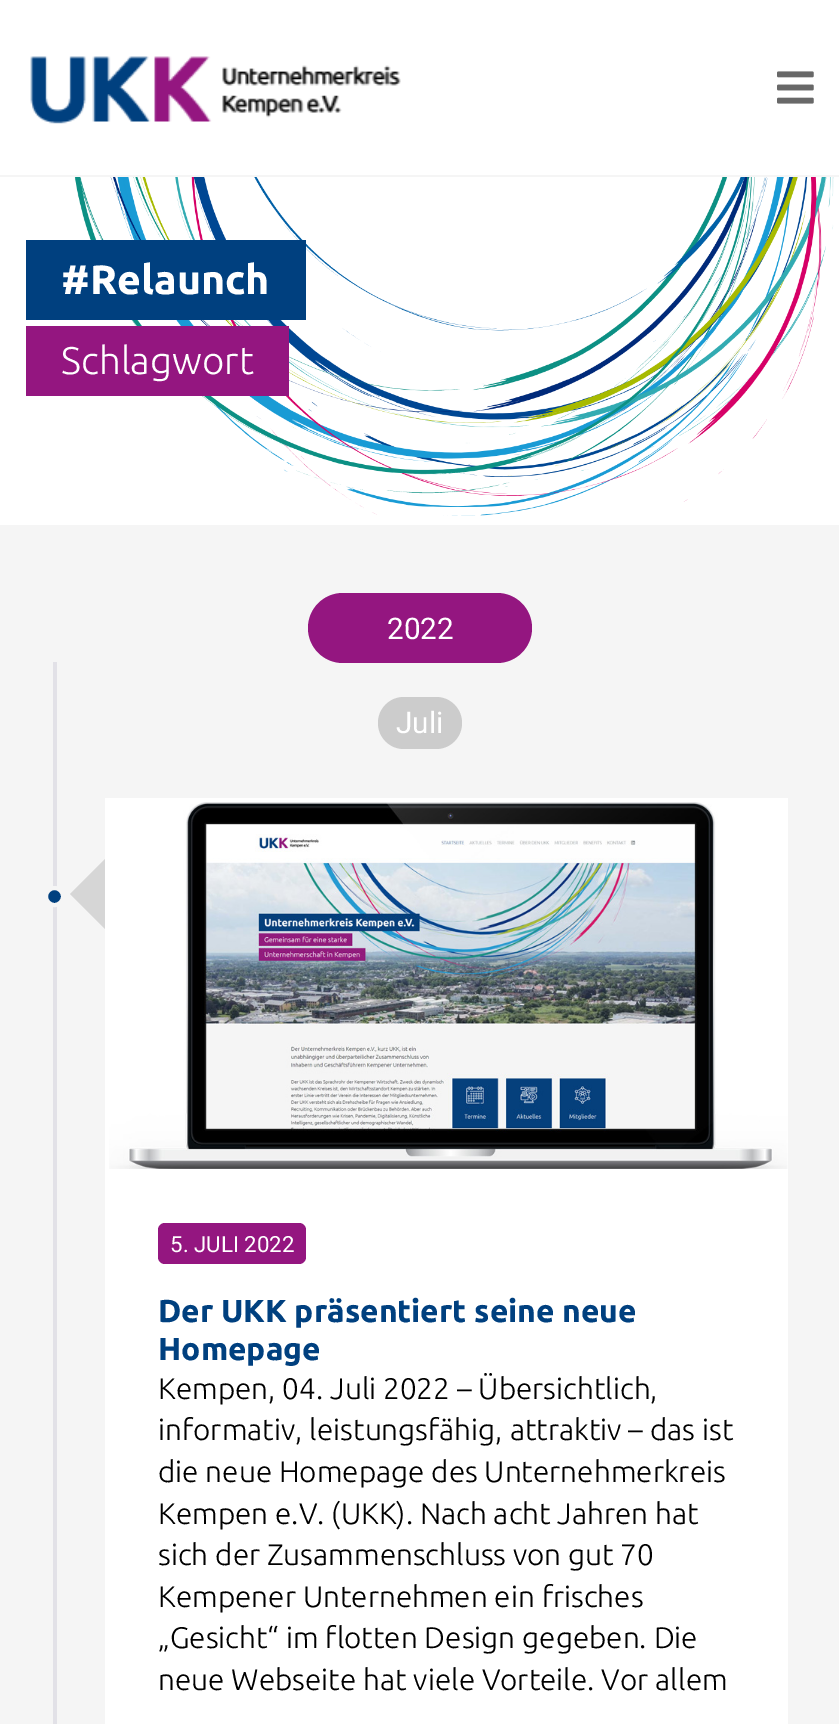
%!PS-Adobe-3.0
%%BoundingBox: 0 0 839 1724
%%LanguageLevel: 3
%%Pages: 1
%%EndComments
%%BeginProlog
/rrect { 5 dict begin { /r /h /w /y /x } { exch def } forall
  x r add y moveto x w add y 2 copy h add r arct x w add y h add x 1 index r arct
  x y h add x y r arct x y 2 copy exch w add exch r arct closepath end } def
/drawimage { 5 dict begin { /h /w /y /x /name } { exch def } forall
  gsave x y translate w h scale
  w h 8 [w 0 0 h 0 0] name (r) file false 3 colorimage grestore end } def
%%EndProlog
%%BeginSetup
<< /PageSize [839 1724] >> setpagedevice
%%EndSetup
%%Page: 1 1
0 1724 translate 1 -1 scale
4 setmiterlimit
0.961 setgray
0 0 839 1724 rectfill
1 setgray
0 0 839 175 rectfill
(images/1.raw) 30 56 371 68 drawimage
(images/2.raw) 777 71 37 33 drawimage
0 177 839 348 rectfill
(images/3.raw) 74 177 760 339 drawimage
0 0.251 0.498 setrgbcolor
26 240 280 80 rectfill
0.58 0.086 0.502 setrgbcolor
26 326 263 70 rectfill
308 593 224 70 35 rrect fill
0.886 0.882 0.906 setrgbcolor
53 662 4 1062 rectfill
0.8 setgray
378 697 84 52 26 rrect fill
1 setgray
105 798 683 926 rectfill
0 0.251 0.498 setrgbcolor
newpath 54.5 896.5 8.5 0 360 arc closepath gsave fill grestore
0.961 setgray
4 setlinewidth
stroke
0.839 setgray
newpath 105 859 moveto 105 929 lineto 70 894 lineto closepath fill
(images/4.raw) 109 802 679 367 drawimage
0.58 0.086 0.502 setrgbcolor
158 1223 148 41 7 rrect fill
/Ubuntu-Bold [41 0 0 -41 0 0] selectfont
1 setgray
61 294 moveto (#Relaunch) show
/Ubuntu-Light [38.5 0 0 -38.5 0 0] selectfont
61 374 moveto (Schlagwort) show
/Roboto-Regular [29.75 0 0 -29.75 0 0] selectfont
387 639 moveto (2022) show
396 733 moveto (Juli) show
/Roboto-Regular [22.25 0 0 -22.25 0 0] selectfont
170 1252 moveto (5. JULI 2022) show
/Ubuntu-Bold [31.75 0 0 -31.75 0 0] selectfont
0 0.251 0.498 setrgbcolor
158 1322 moveto (Der UKK präsentiert seine neue) show
158 1360 moveto (Homepage) show
/Ubuntu-Light [29.75 0 0 -29.75 0 0] selectfont
0 setgray
158 1399 moveto (Kempen, 04. Juli 2022 – Übersichtlich,) show
158 1440 moveto (informativ, leistungsfähig, attraktiv – das ist) show
158 1482 moveto (die neue Homepage des Unternehmerkreis) show
158 1524 moveto (Kempen e.V. \(UKK\). Nach acht Jahren hat) show
158 1565 moveto (sich der Zusammenschluss von gut 70) show
158 1607 moveto (Kempener Unternehmen ein frisches) show
158 1648 moveto („Gesicht“ im flotten Design gegeben. Die) show
158 1690 moveto (neue Webseite hat viele Vorteile. Vor allem) show
showpage
%%EOF
